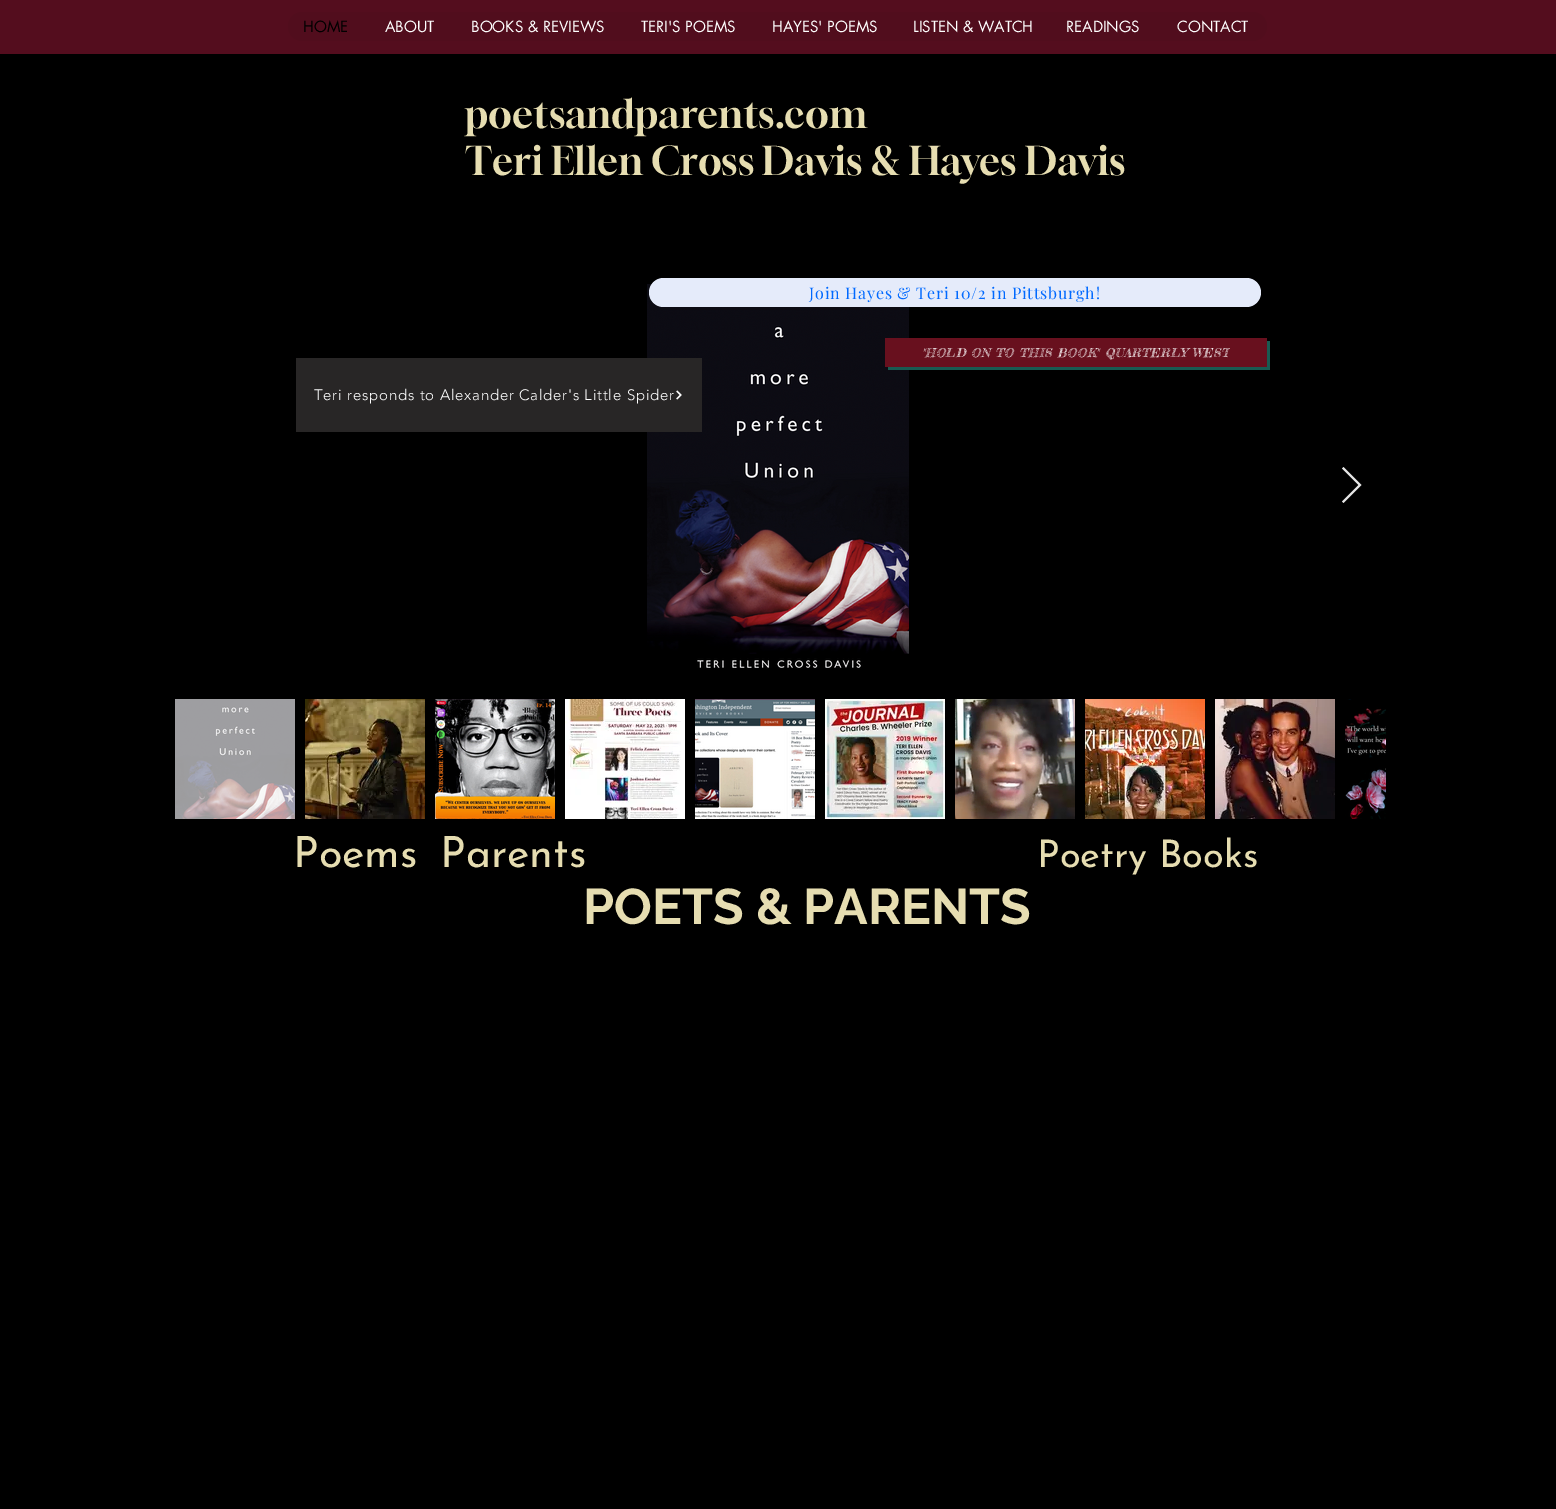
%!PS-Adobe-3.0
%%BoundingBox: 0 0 1556 1509
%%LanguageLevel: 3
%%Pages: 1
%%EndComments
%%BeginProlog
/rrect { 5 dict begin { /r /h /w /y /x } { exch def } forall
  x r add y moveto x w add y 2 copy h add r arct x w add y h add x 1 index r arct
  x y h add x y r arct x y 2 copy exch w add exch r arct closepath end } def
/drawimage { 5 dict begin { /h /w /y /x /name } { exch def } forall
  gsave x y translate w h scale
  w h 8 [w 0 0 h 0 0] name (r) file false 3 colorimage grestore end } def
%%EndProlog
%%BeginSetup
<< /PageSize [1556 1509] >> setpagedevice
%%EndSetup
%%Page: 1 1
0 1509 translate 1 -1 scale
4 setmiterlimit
0 setgray
0 0 1556 1509 rectfill
0.329 0.051 0.118 setrgbcolor
0 0 1556 54 rectfill
0.318 0.051 0.114 setrgbcolor
288 12 979 29 14.5 rrect fill
(images/1.raw) 647 284 262 385 drawimage
0.902 setgray
newpath 1342 468.5 moveto 1343.5 467 lineto 1361.5 485 lineto 1343.5 503 lineto 1342 501.5 lineto 1358.5 485 lineto closepath fill
(images/2.raw) 175 699 120 120 drawimage
(images/3.raw) 305 699 120 120 drawimage
(images/4.raw) 435 699 120 120 drawimage
1 setgray
681 699 4 120 rectfill
(images/5.raw) 565 699 116 120 drawimage
(images/6.raw) 695 699 120 120 drawimage
(images/7.raw) 825 699 120 120 drawimage
(images/8.raw) 955 699 120 120 drawimage
(images/9.raw) 1085 699 120 120 drawimage
(images/10.raw) 1215 699 120 120 drawimage
(images/11.raw) 1345 699 41 120 drawimage
0.898 0.922 0.98 setrgbcolor
649 278 612 29 14.5 rrect fill
0.098 0.357 0.322 setrgbcolor
newpath 888 367 moveto 888 370 lineto 1270 370 lineto 1270 341 lineto 1267 341 lineto 1267 367 lineto closepath fill
0.408 0.063 0.118 setrgbcolor
885 338 382 29 rectfill
0.157 0.149 0.149 setrgbcolor
296 358 406 74 rectfill
(images/12.raw) 676 390 6 10 drawimage
/futura-Regular [15 0 0 -15 0 0] selectfont
0 setgray
303 32 moveto (HOME) show
1 setgray
385 32 moveto (ABOUT) show
471 32 moveto (BOOKS & REVIEWS) show
641 32 moveto (TERI'S POEMS) show
772 32 moveto (HAYES' POEMS) show
913 32 moveto (LISTEN & WATCH) show
1066 32 moveto (READINGS) show
1177 32 moveto (CONTACT) show
/Gloock-Regular [39 0 0 -39 0 0] selectfont
0.902 0.867 0.694 setrgbcolor
465 128 moveto (poetsandparents.com) show
465 175 moveto (Teri Ellen Cross Davis & Hayes Davis) show
/PlayfairDisplay-Regular [16 0 0 -16 0 0] selectfont
0 0.412 1 setrgbcolor
809 299 moveto 0.8 0 (Join Hayes & Teri 10/2 in Pittsburgh!) ashow
gsave
922 345 308 15 rectclip
/FrederickatheGreat-Italic [12 0 0 -12 0 0] selectfont
1 setgray
922 357 moveto 0.6 0 ("HOLD ON TO THIS BOOK" QUARTERLY WEST) ashow
grestore
/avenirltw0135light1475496-Light [15 0 0 -15 0 0] selectfont
1 setgray
314 400 moveto 0.75 0 (Teri responds to Alexander Calder's Little Spider) ashow
/JosefinSans-Thin [43 0 0 -43 0 0] selectfont
0.902 0.867 0.694 setrgbcolor
293 867 moveto (Poems) show
440 867 moveto (Parents) show
/JosefinSans-Thin [38 0 0 -38 0 0] selectfont
1037 867 moveto (Poetry Books) show
/Raleway-Bold [50 0 0 -50 0 0] selectfont
583 924 moveto (POETS & PARENTS) show
showpage
%%EOF
